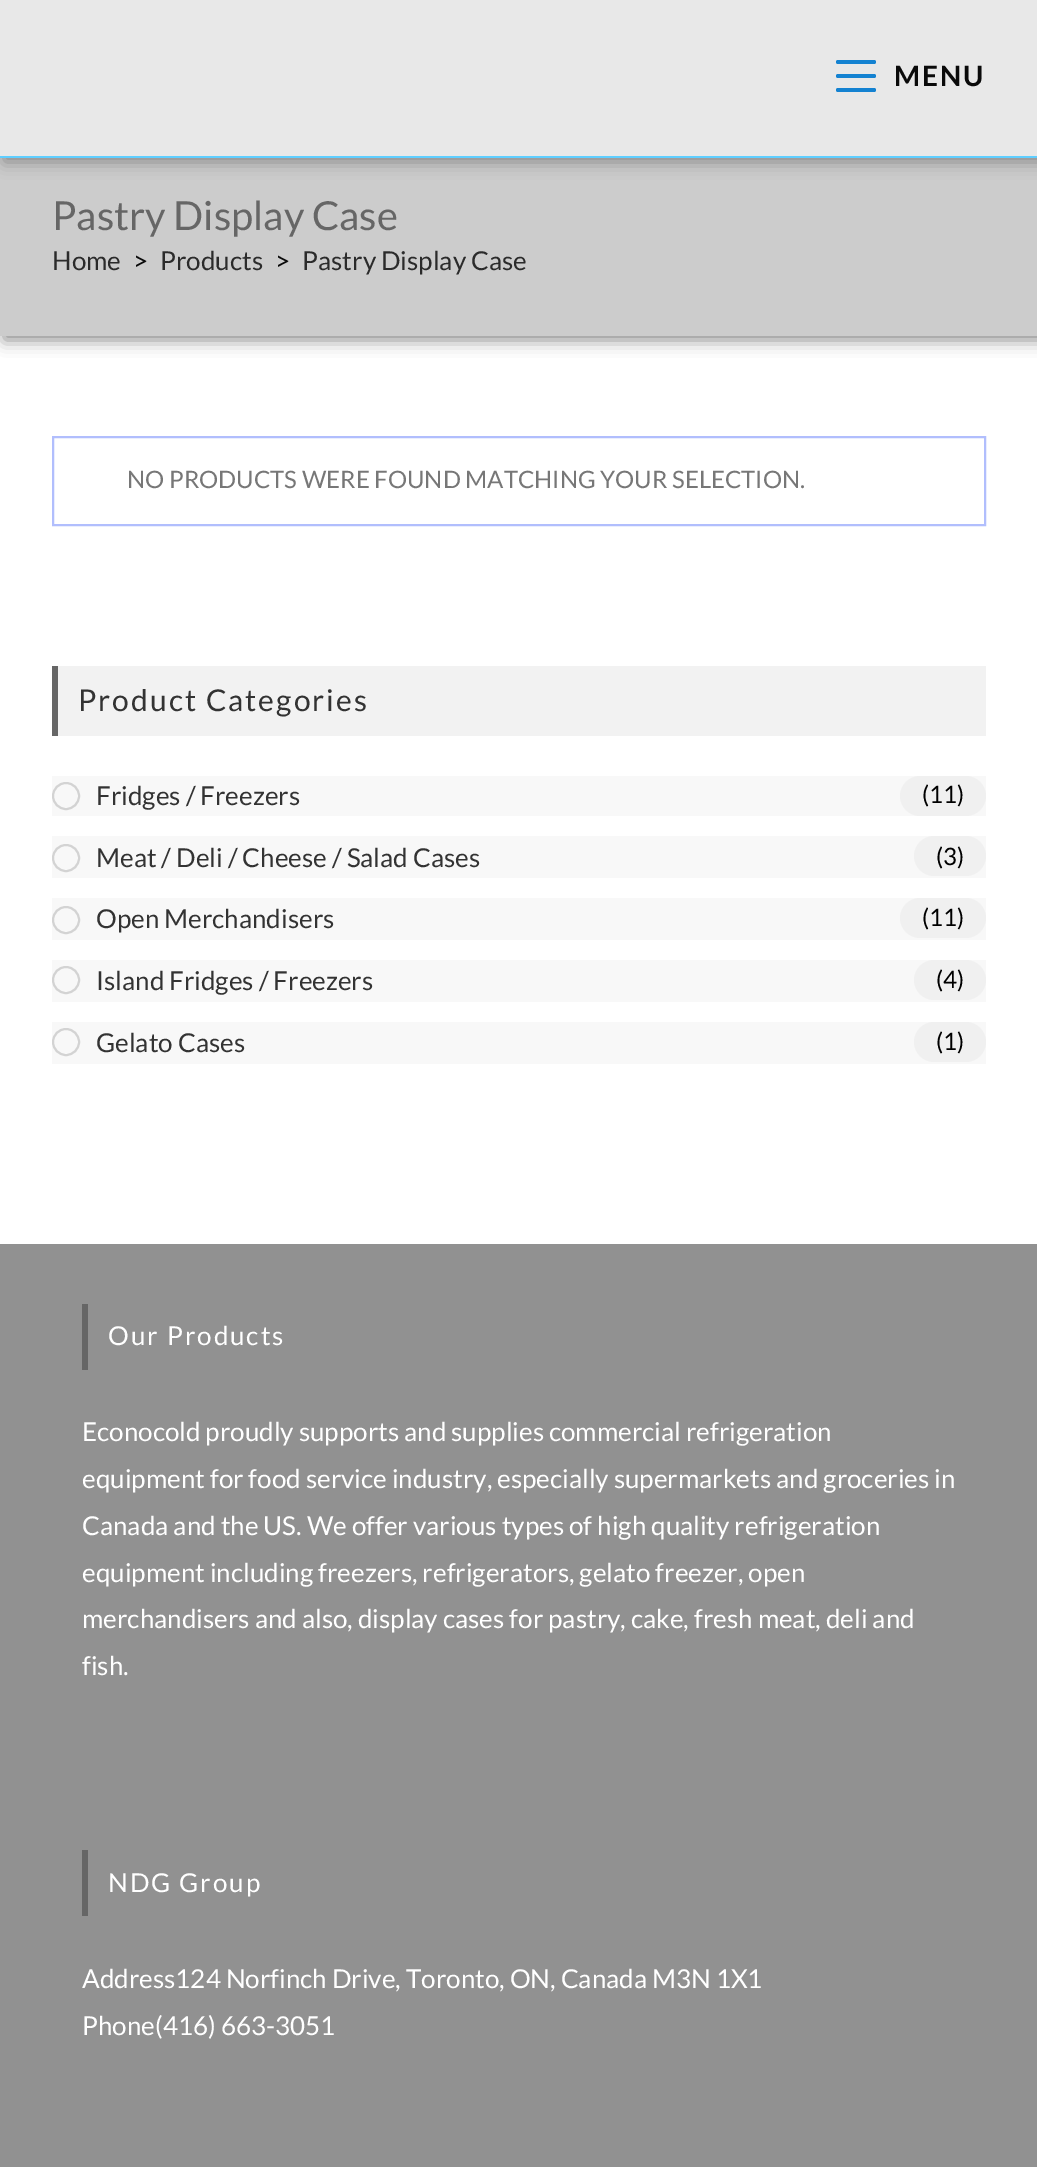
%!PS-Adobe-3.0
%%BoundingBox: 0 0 1037 2167
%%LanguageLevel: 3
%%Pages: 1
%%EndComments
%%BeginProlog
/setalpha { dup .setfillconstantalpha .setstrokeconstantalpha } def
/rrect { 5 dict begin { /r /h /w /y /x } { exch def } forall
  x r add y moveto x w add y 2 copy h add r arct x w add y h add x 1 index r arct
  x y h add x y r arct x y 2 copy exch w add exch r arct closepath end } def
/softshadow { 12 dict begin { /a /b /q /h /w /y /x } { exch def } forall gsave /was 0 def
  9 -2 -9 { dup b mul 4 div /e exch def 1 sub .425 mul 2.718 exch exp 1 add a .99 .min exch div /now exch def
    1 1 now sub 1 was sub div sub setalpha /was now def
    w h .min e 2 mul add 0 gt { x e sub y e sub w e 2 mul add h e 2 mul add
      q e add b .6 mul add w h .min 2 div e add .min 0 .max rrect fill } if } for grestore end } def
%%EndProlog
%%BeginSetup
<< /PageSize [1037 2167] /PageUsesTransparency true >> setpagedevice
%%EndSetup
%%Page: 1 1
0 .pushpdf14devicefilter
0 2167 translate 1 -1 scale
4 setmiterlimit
1 setgray
0 0 1037 2167 rectfill
0.533 setgray
4 0 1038 340 0 8 1 softshadow
0.8 setgray
0 158 1037 178 rectfill
0.533 setgray
4 0 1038 162 0 8 1 softshadow
0.91 setgray
0 0 1037 156 rectfill
0.369 0.808 1 setrgbcolor
0 156 1037 2 rectfill
0.078 0.51 0.82 setrgbcolor
836 60 40 4 2 rrect fill
836 74 40 4 2 rrect fill
836 88 40 4 2 rrect fill
0.694 0.745 0.992 setrgbcolor
2 setlinewidth
53 437 932 88 rectstroke
0.949 setgray
58 666 928 70 rectfill
0.4 setgray
52 666 6 70 rectfill
0.973 setgray
52 776 934 40 rectfill
0.827 setgray
newpath 66 796 13 0 360 arc closepath stroke
0.941 setgray
900 776 86 40 20 rrect fill
0.973 setgray
52 836 934 42 rectfill
0.827 setgray
newpath 66 858 13 0 360 arc closepath stroke
0.941 setgray
914 836 72 40 20 rrect fill
0.973 setgray
52 898 934 42 rectfill
0.827 setgray
newpath 66 920 13 0 360 arc closepath stroke
0.941 setgray
900 898 86 40 20 rrect fill
0.973 setgray
52 960 934 42 rectfill
0.827 setgray
newpath 66 980 13 0 360 arc closepath stroke
0.941 setgray
914 960 72 40 20 rrect fill
0.973 setgray
52 1022 934 42 rectfill
0.827 setgray
newpath 66 1042 13 0 360 arc closepath stroke
0.941 setgray
914 1022 72 40 20 rrect fill
0.569 setgray
0 1244 1037 923 rectfill
0.4 setgray
82 1304 6 66 rectfill
82 1850 6 66 rectfill
/Lato-Bold [28 0 0 -28 0 0] selectfont
0.039 setgray
894 86 moveto 2 0 (MENU) ashow
/Lato-Regular [40 0 0 -40 0 0] selectfont
0.4 setgray
52 230 moveto (Pastry Display Case) show
/Lato-Regular [26 0 0 -26 0 0] selectfont
0.169 setgray
52 270 moveto (Home) show
0.039 setgray
133 270 moveto (>) show
0.169 setgray
160 270 moveto (Products) show
0.039 setgray
275 270 moveto (>) show
0.169 setgray
302 270 moveto (Pastry Display Case) show
/Lato-Regular [24 0 0 -24 0 0] selectfont
0.467 setgray
127 488 moveto (NO PRODUCTS WERE FOUND MATCHING YOUR SELECTION.) show
/Lato-Regular [30 0 0 -30 0 0] selectfont
0.2 setgray
78 711 moveto 2 0 (Product Categories) ashow
/Lato-Regular [26 0 0 -26 0 0] selectfont
96 805 moveto (Fridges / Freezers) show
/Lato-Regular [24 0 0 -24 0 0] selectfont
0 setgray
922 803 moveto (\(11\)) show
/Lato-Regular [26 0 0 -26 0 0] selectfont
0.2 setgray
96 867 moveto (Meat / Deli / Cheese / Salad Cases) show
/Lato-Regular [24 0 0 -24 0 0] selectfont
0 setgray
936 865 moveto (\(3\)) show
/Lato-Regular [26 0 0 -26 0 0] selectfont
0.2 setgray
96 928 moveto (Open Merchandisers) show
/Lato-Regular [24 0 0 -24 0 0] selectfont
0 setgray
922 926 moveto (\(11\)) show
/Lato-Regular [26 0 0 -26 0 0] selectfont
0.2 setgray
96 990 moveto (Island Fridges / Freezers) show
/Lato-Regular [24 0 0 -24 0 0] selectfont
0 setgray
936 988 moveto (\(4\)) show
/Lato-Regular [26 0 0 -26 0 0] selectfont
0.2 setgray
96 1052 moveto (Gelato Cases) show
/Lato-Regular [24 0 0 -24 0 0] selectfont
0 setgray
936 1050 moveto (\(1\)) show
/Lato-Regular [26 0 0 -26 0 0] selectfont
1 setgray
108 1345 moveto 2 0 (Our Products) ashow
82 1441 moveto (Econocold proudly supports and supplies commercial refrigeration) show
82 1488 moveto (equipment for food service industry, especially supermarkets and groceries in) show
82 1535 moveto (Canada and the US. We offer various types of high quality refrigeration) show
82 1582 moveto (equipment including freezers, refrigerators, gelato freezer, open) show
82 1628 moveto (merchandisers and also, display cases for pastry, cake, fresh meat, deli and) show
82 1675 moveto (fish.) show
108 1892 moveto 2 0 (NDG Group) ashow
82 1988 moveto (Address124 Norfinch Drive, Toronto, ON, Canada M3N 1X1) show
82 2035 moveto (Phone\(416\) 663-3051) show
.poppdf14devicefilter showpage
%%EOF
